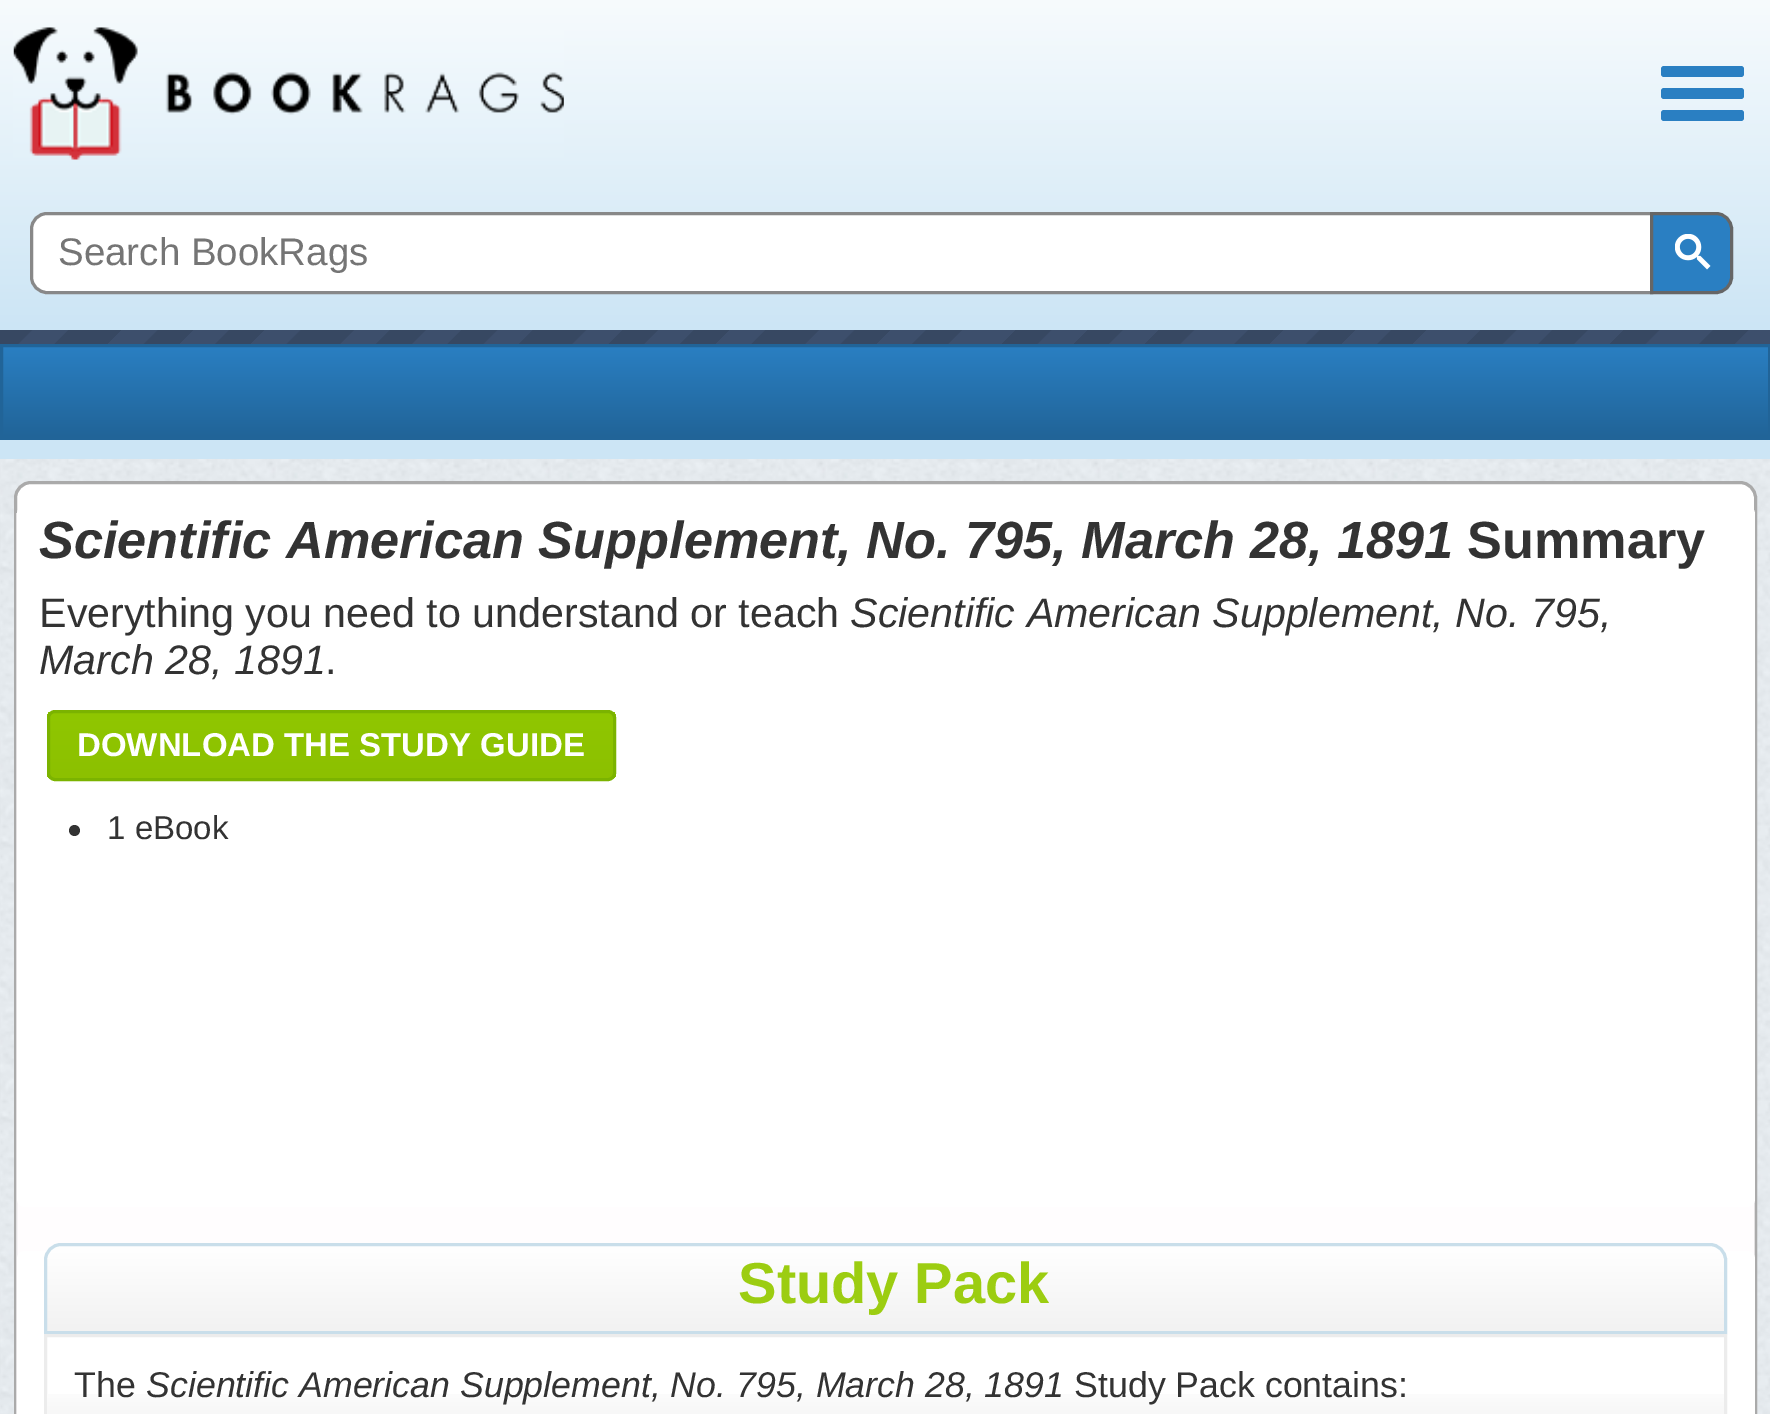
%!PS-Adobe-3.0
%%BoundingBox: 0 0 1770 1414
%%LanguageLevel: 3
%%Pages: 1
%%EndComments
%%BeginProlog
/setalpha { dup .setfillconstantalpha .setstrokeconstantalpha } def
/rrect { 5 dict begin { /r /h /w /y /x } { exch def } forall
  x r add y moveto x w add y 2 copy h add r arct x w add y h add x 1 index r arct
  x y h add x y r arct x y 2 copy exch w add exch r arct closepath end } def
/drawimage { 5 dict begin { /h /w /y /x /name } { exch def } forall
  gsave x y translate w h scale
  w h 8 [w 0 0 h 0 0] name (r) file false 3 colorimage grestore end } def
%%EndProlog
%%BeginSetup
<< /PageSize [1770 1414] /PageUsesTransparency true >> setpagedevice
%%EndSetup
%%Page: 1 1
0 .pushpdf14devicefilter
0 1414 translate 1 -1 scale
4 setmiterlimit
1 setgray
0 0 1770 1414 rectfill
(images/1.raw) 0 459 1770 955 drawimage
gsave newpath 0 0 moveto 1770 0 lineto 1770 330 lineto 0 330 lineto closepath clip newpath
<< /ShadingType 2 /ColorSpace /DeviceRGB /Coords [886 0 886 330] /Extend [true true] /Function << /FunctionType 2 /Domain [0 1] /C0 [0.969 0.984 0.992] /C1 [0.8 0.898 0.961] /N 1 >> >> shfill grestore
(images/2.raw) 13 27 551 133 drawimage
0.165 0.498 0.761 setrgbcolor
1661 66 83 11 3 rrect fill
1661 88 83 11 3 rrect fill
1661 110 83 11 3 rrect fill
1 setgray
newpath 47 213.5 moveto 1651.5 213.5 lineto 1651.5 292.5 lineto 47 292.5 lineto 38.5 292.5 31.5 285.5 31.5 277 curveto 31.5 229 lineto 31.5 220.5 38.5 213.5 47 213.5 curveto closepath gsave fill grestore
0.533 setgray
3 setlinewidth
stroke
0.165 0.498 0.761 setrgbcolor
newpath 1651.5 213.5 moveto 1716 213.5 lineto 1724.5 213.5 1731.5 220.5 1731.5 229 curveto 1731.5 277 lineto 1731.5 285.5 1724.5 292.5 1716 292.5 curveto 1651.5 292.5 lineto closepath gsave fill grestore
0.4 setgray
stroke
(images/3.raw) 1675 234 36 36 drawimage
gsave newpath 0 330 moveto 1770 330 lineto 1770 344 lineto 0 344 lineto closepath clip newpath
<< /ShadingType 2 /ColorSpace /DeviceRGB /Coords [1332 783 437 -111] /Extend [true true] /Function << /FunctionType 3 /Domain [0 1] /Functions [<< /FunctionType 2 /Domain [0 1] /C0 [0.239 0.31 0.424] /C1 [0.239 0.31 0.424] /N 1 >> << /FunctionType 2 /Domain [0 1] /C0 [0.216 0.282 0.384] /C1 [0.216 0.282 0.384] /N 1 >> << /FunctionType 2 /Domain [0 1] /C0 [0.239 0.31 0.424] /C1 [0.239 0.31 0.424] /N 1 >> << /FunctionType 2 /Domain [0 1] /C0 [0.216 0.282 0.384] /C1 [0.216 0.282 0.384] /N 1 >> << /FunctionType 2 /Domain [0 1] /C0 [0.239 0.31 0.424] /C1 [0.239 0.31 0.424] /N 1 >> << /FunctionType 2 /Domain [0 1] /C0 [0.216 0.282 0.384] /C1 [0.216 0.282 0.384] /N 1 >> << /FunctionType 2 /Domain [0 1] /C0 [0.239 0.31 0.424] /C1 [0.239 0.31 0.424] /N 1 >> << /FunctionType 2 /Domain [0 1] /C0 [0.216 0.282 0.384] /C1 [0.216 0.282 0.384] /N 1 >> << /FunctionType 2 /Domain [0 1] /C0 [0.239 0.31 0.424] /C1 [0.239 0.31 0.424] /N 1 >> << /FunctionType 2 /Domain [0 1] /C0 [0.216 0.282 0.384] /C1 [0.216 0.282 0.384] /N 1 >> << /FunctionType 2 /Domain [0 1] /C0 [0.239 0.31 0.424] /C1 [0.239 0.31 0.424] /N 1 >> << /FunctionType 2 /Domain [0 1] /C0 [0.216 0.282 0.384] /C1 [0.216 0.282 0.384] /N 1 >> << /FunctionType 2 /Domain [0 1] /C0 [0.239 0.31 0.424] /C1 [0.239 0.31 0.424] /N 1 >> << /FunctionType 2 /Domain [0 1] /C0 [0.216 0.282 0.384] /C1 [0.216 0.282 0.384] /N 1 >> << /FunctionType 2 /Domain [0 1] /C0 [0.239 0.31 0.424] /C1 [0.239 0.31 0.424] /N 1 >> << /FunctionType 2 /Domain [0 1] /C0 [0.216 0.282 0.384] /C1 [0.216 0.282 0.384] /N 1 >> << /FunctionType 2 /Domain [0 1] /C0 [0.239 0.31 0.424] /C1 [0.239 0.31 0.424] /N 1 >> << /FunctionType 2 /Domain [0 1] /C0 [0.216 0.282 0.384] /C1 [0.216 0.282 0.384] /N 1 >> << /FunctionType 2 /Domain [0 1] /C0 [0.239 0.31 0.424] /C1 [0.239 0.31 0.424] /N 1 >> << /FunctionType 2 /Domain [0 1] /C0 [0.216 0.282 0.384] /C1 [0.216 0.282 0.384] /N 1 >> << /FunctionType 2 /Domain [0 1] /C0 [0.239 0.31 0.424] /C1 [0.239 0.31 0.424] /N 1 >> << /FunctionType 2 /Domain [0 1] /C0 [0.216 0.282 0.384] /C1 [0.216 0.282 0.384] /N 1 >> << /FunctionType 2 /Domain [0 1] /C0 [0.239 0.31 0.424] /C1 [0.239 0.31 0.424] /N 1 >> << /FunctionType 2 /Domain [0 1] /C0 [0.216 0.282 0.384] /C1 [0.216 0.282 0.384] /N 1 >> << /FunctionType 2 /Domain [0 1] /C0 [0.239 0.31 0.424] /C1 [0.239 0.31 0.424] /N 1 >> << /FunctionType 2 /Domain [0 1] /C0 [0.216 0.282 0.384] /C1 [0.216 0.282 0.384] /N 1 >> << /FunctionType 2 /Domain [0 1] /C0 [0.239 0.31 0.424] /C1 [0.239 0.31 0.424] /N 1 >> << /FunctionType 2 /Domain [0 1] /C0 [0.216 0.282 0.384] /C1 [0.216 0.282 0.384] /N 1 >> << /FunctionType 2 /Domain [0 1] /C0 [0.239 0.31 0.424] /C1 [0.239 0.31 0.424] /N 1 >> << /FunctionType 2 /Domain [0 1] /C0 [0.216 0.282 0.384] /C1 [0.216 0.282 0.384] /N 1 >> << /FunctionType 2 /Domain [0 1] /C0 [0.239 0.31 0.424] /C1 [0.239 0.31 0.424] /N 1 >> << /FunctionType 2 /Domain [0 1] /C0 [0.216 0.282 0.384] /C1 [0.216 0.282 0.384] /N 1 >> << /FunctionType 2 /Domain [0 1] /C0 [0.239 0.31 0.424] /C1 [0.239 0.31 0.424] /N 1 >> << /FunctionType 2 /Domain [0 1] /C0 [0.216 0.282 0.384] /C1 [0.216 0.282 0.384] /N 1 >> << /FunctionType 2 /Domain [0 1] /C0 [0.239 0.31 0.424] /C1 [0.239 0.31 0.424] /N 1 >> << /FunctionType 2 /Domain [0 1] /C0 [0.216 0.282 0.384] /C1 [0.216 0.282 0.384] /N 1 >> << /FunctionType 2 /Domain [0 1] /C0 [0.239 0.31 0.424] /C1 [0.239 0.31 0.424] /N 1 >> << /FunctionType 2 /Domain [0 1] /C0 [0.216 0.282 0.384] /C1 [0.216 0.282 0.384] /N 1 >> << /FunctionType 2 /Domain [0 1] /C0 [0.239 0.31 0.424] /C1 [0.239 0.31 0.424] /N 1 >> << /FunctionType 2 /Domain [0 1] /C0 [0.216 0.282 0.384] /C1 [0.216 0.282 0.384] /N 1 >> << /FunctionType 2 /Domain [0 1] /C0 [0.239 0.31 0.424] /C1 [0.239 0.31 0.424] /N 1 >> << /FunctionType 2 /Domain [0 1] /C0 [0.216 0.282 0.384] /C1 [0.216 0.282 0.384] /N 1 >> << /FunctionType 2 /Domain [0 1] /C0 [0.239 0.31 0.424] /C1 [0.239 0.31 0.424] /N 1 >> << /FunctionType 2 /Domain [0 1] /C0 [0.216 0.282 0.384] /C1 [0.216 0.282 0.384] /N 1 >> << /FunctionType 2 /Domain [0 1] /C0 [0.239 0.31 0.424] /C1 [0.239 0.31 0.424] /N 1 >> << /FunctionType 2 /Domain [0 1] /C0 [0.216 0.282 0.384] /C1 [0.216 0.282 0.384] /N 1 >>] /Bounds [0.02 0.04 0.07 0.09 0.11 0.13 0.15 0.17 0.2 0.22 0.24 0.26 0.28 0.3 0.33 0.35 0.37 0.39 0.41 0.43 0.46 0.48 0.5 0.52 0.54 0.57 0.59 0.61 0.63 0.65 0.67 0.7 0.72 0.74 0.76 0.78 0.8 0.83 0.85 0.87 0.89 0.91 0.93 0.96 0.98] /Encode [0 1 0 1 0 1 0 1 0 1 0 1 0 1 0 1 0 1 0 1 0 1 0 1 0 1 0 1 0 1 0 1 0 1 0 1 0 1 0 1 0 1 0 1 0 1 0 1 0 1 0 1 0 1 0 1 0 1 0 1 0 1 0 1 0 1 0 1 0 1 0 1 0 1 0 1 0 1 0 1 0 1 0 1 0 1 0 1 0 1 0 1] >> >> shfill grestore
gsave newpath 3 347 moveto 1768 347 lineto 1768 437 lineto 3 437 lineto closepath clip newpath
<< /ShadingType 2 /ColorSpace /DeviceRGB /Coords [886 346 886 437] /Extend [true true] /Function << /FunctionType 2 /Domain [0 1] /C0 [0.165 0.498 0.761] /C1 [0.129 0.392 0.596] /N 1 >> >> shfill grestore
0.129 0.392 0.596 setrgbcolor
1.5 345.5 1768 93 rectstroke
0.8 0.898 0.961 setrgbcolor
0 440 1770 19 rectfill
1 setgray
15.5 482.5 1740 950 15.5 rrect gsave fill grestore
0.667 setgray
stroke
0.67 setalpha
1 0.988 0.996 setrgbcolor
16 513 1739 901 rectfill
1 setalpha
1 setgray
17 506 1738 701 8 rrect fill
gsave
47 710 569 71 8 rrect clip newpath
gsave newpath 47 712 moveto 616 712 lineto 616 778 lineto 47 778 lineto closepath clip newpath
<< /ShadingType 2 /ColorSpace /DeviceRGB /Coords [331 712 331 778] /Extend [true true] /Function << /FunctionType 2 /Domain [0 1] /C0 [0.565 0.78 0] /C1 [0.549 0.753 0] /N 1 >> >> shfill grestore
grestore
0.482 0.702 0 setrgbcolor
48.5 711.5 566 68 6.5 rrect stroke
0.2 setgray
newpath 74.5 830.5 5.5 0 360 arc closepath fill
1 setgray
17 1251 1738 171 8 rrect fill
gsave
newpath 61 1243 moveto 1710 1243 lineto 1719.5 1243 1727 1250.5 1727 1260 curveto 1727 1334 lineto 44 1334 lineto 44 1260 lineto 44 1250.5 51.5 1243 61 1243 curveto closepath clip newpath
gsave newpath 44 1246 moveto 1727 1246 lineto 1727 1331 lineto 44 1331 lineto closepath clip newpath
<< /ShadingType 2 /ColorSpace /DeviceRGB /Coords [886 1246 886 1331] /Extend [true true] /Function << /FunctionType 2 /Domain [0 1] /C0 [1 1 1] /C1 [0.949 0.949 0.949] /N 1 >> >> shfill grestore
grestore
0.788 0.871 0.918 setrgbcolor
newpath 61 1244.5 moveto 1710 1244.5 lineto 1718.5 1244.5 1725.5 1251.5 1725.5 1260 curveto 1725.5 1332.5 lineto 45.5 1332.5 lineto 45.5 1260 lineto 45.5 1251.5 52.5 1244.5 61 1244.5 curveto closepath stroke
0.925 setgray
45.5 1335.5 1680 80 rectstroke
gsave newpath 47 1394 moveto 1724 1394 lineto 1724 1414 lineto 47 1414 lineto closepath clip newpath
<< /ShadingType 2 /ColorSpace /DeviceRGB /Coords [886 1336 886 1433] /Extend [true true] /Function << /FunctionType 3 /Domain [0 1] /Functions [<< /FunctionType 2 /Domain [0 1] /C0 [1 1 1] /C1 [1 1 1] /N 1 >> << /FunctionType 2 /Domain [0 1] /C0 [1 1 1] /C1 [0.949 0.949 0.949] /N 1 >>] /Bounds [0.5] /Encode [0 1 0 1] >> >> shfill grestore
/LiberationSans-Regular [38.5 0 0 -38.5 0 0] selectfont
0.459 setgray
58 265 moveto (Search BookRags) show
/LiberationSans-BoldItalic [52.25 0 0 -52.25 0 0] selectfont
0.2 setgray
39 558 moveto (Scientific American Supplement, No. 795, March 28, 1891) show
/LiberationSans-Bold [52.25 0 0 -52.25 0 0] selectfont
1467 558 moveto (Summary) show
/LiberationSans-Regular [41.25 0 0 -41.25 0 0] selectfont
39 627 moveto (Everything you need to understand or teach) show
/LiberationSans-Italic [41.25 0 0 -41.25 0 0] selectfont
850 627 moveto (Scientific American Supplement, No. 795,) show
39 674 moveto (March 28, 1891) show
/LiberationSans-Regular [41.25 0 0 -41.25 0 0] selectfont
325 674 moveto (.) show
/LiberationSans-Bold [33 0 0 -33 0 0] selectfont
1 setgray
77 756 moveto (DOWNLOAD THE STUDY GUIDE) show
/LiberationSans-Regular [33 0 0 -33 0 0] selectfont
0.2 setgray
107 839 moveto (1 eBook) show
/LiberationSans-Bold [57.75 0 0 -57.75 0 0] selectfont
0.612 0.804 0.067 setrgbcolor
738 1303 moveto (Study Pack) show
/LiberationSans-Regular [35.75 0 0 -35.75 0 0] selectfont
0.2 setgray
74 1397 moveto (The) show
/LiberationSans-Italic [35.75 0 0 -35.75 0 0] selectfont
146 1397 moveto (Scientific American Supplement, No. 795, March 28, 1891) show
/LiberationSans-Regular [35.75 0 0 -35.75 0 0] selectfont
1074 1397 moveto (Study Pack contains:) show
.poppdf14devicefilter showpage
%%EOF
